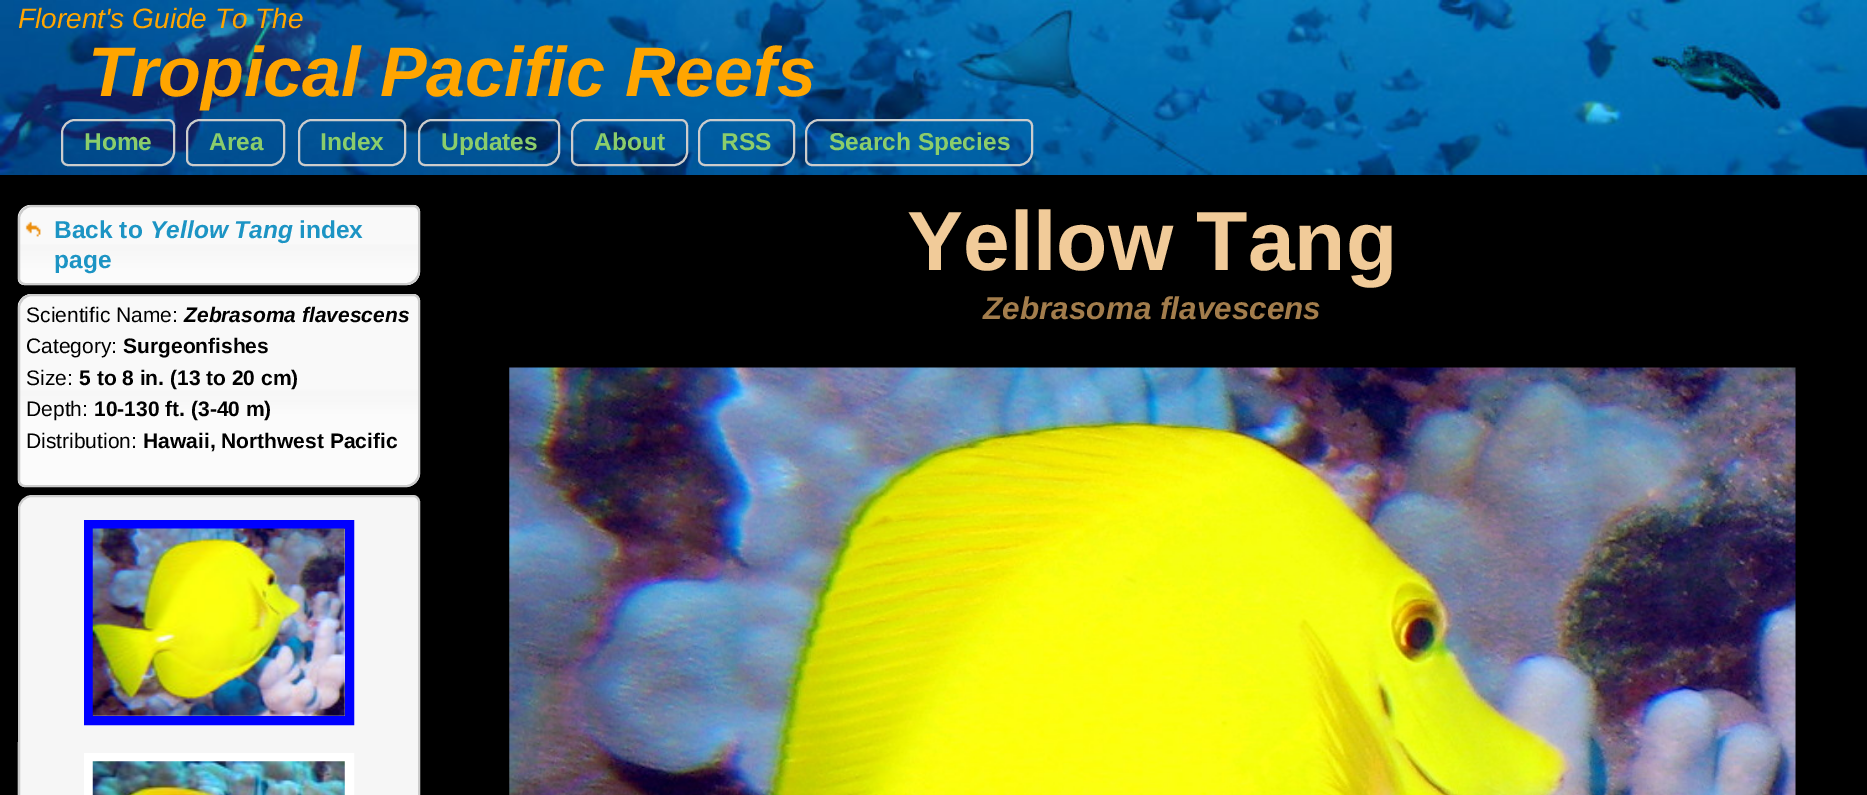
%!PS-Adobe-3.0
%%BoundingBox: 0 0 1867 795
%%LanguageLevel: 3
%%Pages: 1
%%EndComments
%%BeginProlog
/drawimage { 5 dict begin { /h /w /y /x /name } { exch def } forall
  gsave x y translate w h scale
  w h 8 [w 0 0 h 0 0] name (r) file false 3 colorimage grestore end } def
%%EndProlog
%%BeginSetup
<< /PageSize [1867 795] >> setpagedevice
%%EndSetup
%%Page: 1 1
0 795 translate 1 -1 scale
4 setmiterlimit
0 setgray
0 0 1867 795 rectfill
(images/1.raw) 0 0 1867 175 drawimage
0.8 setgray
2 setlinewidth
newpath 75 120 moveto 168 120 lineto 171.5 120 174 122.5 174 126 curveto 174 152 lineto 174 159 168 165 161 165 curveto 68 165 lineto 64.5 165 62 162.5 62 159 curveto 62 133 lineto 62 126 68 120 75 120 curveto closepath stroke
newpath 200 120 moveto 278 120 lineto 281.5 120 284 122.5 284 126 curveto 284 152 lineto 284 159 278 165 271 165 curveto 193 165 lineto 189.5 165 187 162.5 187 159 curveto 187 133 lineto 187 126 193 120 200 120 curveto closepath stroke
newpath 312 120 moveto 399 120 lineto 402.5 120 405 122.5 405 126 curveto 405 152 lineto 405 159 399 165 392 165 curveto 305 165 lineto 301.5 165 299 162.5 299 159 curveto 299 133 lineto 299 126 305 120 312 120 curveto closepath stroke
newpath 432 120 moveto 553 120 lineto 556.5 120 559 122.5 559 126 curveto 559 152 lineto 559 159 553 165 546 165 curveto 425 165 lineto 421.5 165 419 162.5 419 159 curveto 419 133 lineto 419 126 425 120 432 120 curveto closepath stroke
newpath 585 120 moveto 681 120 lineto 684.5 120 687 122.5 687 126 curveto 687 152 lineto 687 159 681 165 674 165 curveto 578 165 lineto 574.5 165 572 162.5 572 159 curveto 572 133 lineto 572 126 578 120 585 120 curveto closepath stroke
newpath 712 120 moveto 788 120 lineto 791.5 120 794 122.5 794 126 curveto 794 152 lineto 794 159 788 165 781 165 curveto 705 165 lineto 701.5 165 699 162.5 699 159 curveto 699 133 lineto 699 126 705 120 712 120 curveto closepath stroke
newpath 819 120 moveto 1026 120 lineto 1029.5 120 1032 122.5 1032 126 curveto 1032 152 lineto 1032 159 1026 165 1019 165 curveto 812 165 lineto 808.5 165 806 162.5 806 159 curveto 806 133 lineto 806 126 812 120 819 120 curveto closepath stroke
(images/2.raw) 17 204 403 82 drawimage
newpath 32 206 moveto 413 206 lineto 416.5 206 419 208.5 419 212 curveto 419 271 lineto 419 278 413 284 406 284 curveto 25 284 lineto 21.5 284 19 281.5 19 278 curveto 19 219 lineto 19 212 25 206 32 206 curveto closepath stroke
(images/3.raw) 25 221 16 16 drawimage
(images/4.raw) 17 294 403 193 drawimage
newpath 32 295 moveto 413 295 lineto 416.5 295 419 297.5 419 301 curveto 419 473 lineto 419 480 413 486 406 486 curveto 25 486 lineto 21.5 486 19 483.5 19 480 curveto 19 308 lineto 19 301 25 295 32 295 curveto closepath stroke
0.965 setgray
newpath 32 496 moveto 413 496 lineto 416.5 496 419 498.5 419 502 curveto 419 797 lineto 419 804 413 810 406 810 curveto 25 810 lineto 21.5 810 19 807.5 19 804 curveto 19 509 lineto 19 502 25 496 32 496 curveto closepath gsave fill grestore
0.8 setgray
stroke
0.247 setgray
17 742 1 53 rectfill
0 0 1 setrgbcolor
9 setlinewidth
88.5 524.5 261 196 rectstroke
(images/5.raw) 92 528 253 188 drawimage
1 setgray
88.5 757.5 261 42 rectstroke
(images/6.raw) 92 761 253 34 drawimage
(images/7.raw) 509 367 1287 428 drawimage
/LiberationSans-Italic [28 0 0 -28 0 0] selectfont
1 0.647 0 setrgbcolor
18 28 moveto (Florent's Guide To The) show
/LiberationSans-BoldItalic [70 0 0 -70 0 0] selectfont
88 96 moveto (Tropical Pacific Reefs) show
/LiberationSans-Bold [24.5 0 0 -24.5 0 0] selectfont
0.545 0.804 0.42 setrgbcolor
84 150 moveto (Home) show
209 150 moveto (Area) show
320 150 moveto (Index) show
441 150 moveto (Updates) show
594 150 moveto (About) show
721 150 moveto (RSS) show
829 150 moveto (Search Species) show
0.11 0.58 0.769 setrgbcolor
54 238 moveto (Back to) show
/LiberationSans-BoldItalic [24.5 0 0 -24.5 0 0] selectfont
150 238 moveto (Yellow Tang) show
/LiberationSans-Bold [24.5 0 0 -24.5 0 0] selectfont
299 238 moveto (index) show
54 268 moveto (page) show
/LiberationSans-Regular [21 0 0 -21 0 0] selectfont
0 setgray
26 322 moveto (Scientific Name:) show
/LiberationSans-BoldItalic [21 0 0 -21 0 0] selectfont
184 322 moveto (Zebrasoma flavescens) show
/LiberationSans-Regular [21 0 0 -21 0 0] selectfont
26 353 moveto (Category:) show
/LiberationSans-Bold [21 0 0 -21 0 0] selectfont
123 353 moveto (Surgeonfishes) show
/LiberationSans-Regular [21 0 0 -21 0 0] selectfont
26 385 moveto (Size:) show
/LiberationSans-Bold [21 0 0 -21 0 0] selectfont
79 385 moveto (5 to 8 in. \(13 to 20 cm\)) show
/LiberationSans-Regular [21 0 0 -21 0 0] selectfont
26 416 moveto (Depth:) show
/LiberationSans-Bold [21 0 0 -21 0 0] selectfont
94 416 moveto (10-130 ft. \(3-40 m\)) show
/LiberationSans-Regular [21 0 0 -21 0 0] selectfont
26 448 moveto (Distribution:) show
/LiberationSans-Bold [21 0 0 -21 0 0] selectfont
143 448 moveto (Hawaii, Northwest Pacific) show
/LiberationSans-Bold [84 0 0 -84 0 0] selectfont
0.945 0.796 0.6 setrgbcolor
907 270 moveto (Yellow Tang) show
/LiberationSans-BoldItalic [31.5 0 0 -31.5 0 0] selectfont
0.639 0.49 0.298 setrgbcolor
983 319 moveto (Zebrasoma flavescens) show
showpage
%%EOF
